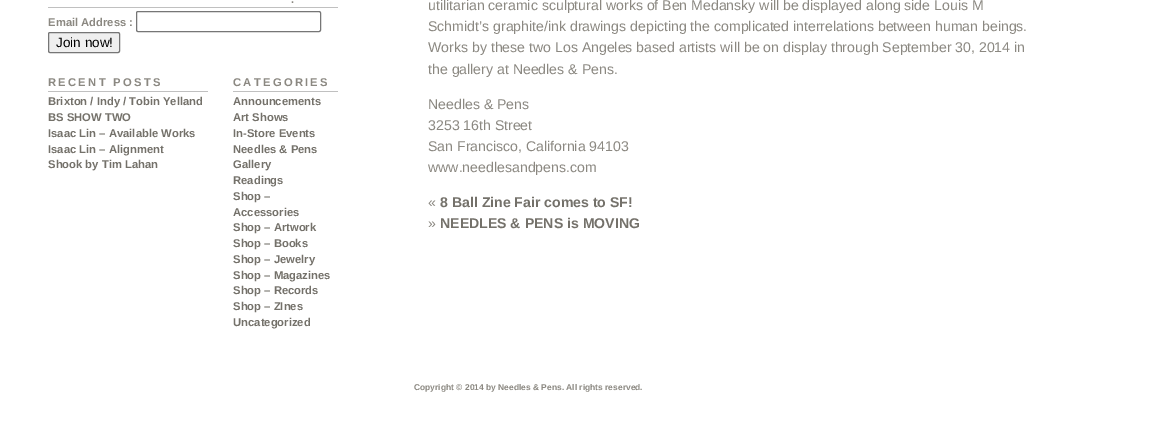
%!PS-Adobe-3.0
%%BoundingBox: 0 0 1151 435
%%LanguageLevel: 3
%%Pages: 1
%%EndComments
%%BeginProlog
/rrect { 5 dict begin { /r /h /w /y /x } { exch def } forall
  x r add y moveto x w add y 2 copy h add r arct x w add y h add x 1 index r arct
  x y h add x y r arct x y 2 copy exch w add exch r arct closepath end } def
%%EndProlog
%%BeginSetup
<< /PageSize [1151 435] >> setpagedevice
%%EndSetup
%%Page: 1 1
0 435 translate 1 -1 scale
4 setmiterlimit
1 setgray
0 0 1151 435 rectfill
0.753 setgray
48 7 290 1 rectfill
0.463 setgray
136.5 11.5 184 20 1.5 rrect stroke
0.937 setgray
48.5 32.5 71 20 1.5 rrect gsave fill grestore
0.463 setgray
stroke
0.753 setgray
48 91 160 1 rectfill
233 91 105 1 rectfill
/LiberationSans-Bold [11.25 0 0 -11.25 0 0] selectfont
0.545 0.533 0.506 setrgbcolor
291 3 moveto 2.25 0 (.) ashow
48 26 moveto (Email Address :) show
/LiberationSans-Regular [13.5 0 0 -13.5 0 0] selectfont
0 setgray
56 47 moveto (Join now!) show
/LiberationSans-Bold [11.25 0 0 -11.25 0 0] selectfont
0.545 0.533 0.506 setrgbcolor
48 86 moveto 2.25 0 (RECENT POSTS) ashow
0.455 0.443 0.416 setrgbcolor
48 105 moveto (Brixton / Indy / Tobin Yelland) show
48 121 moveto (BS SHOW TWO) show
48 137 moveto (Isaac Lin – Available Works) show
48 153 moveto (Isaac Lin – Alignment) show
48 168 moveto (Shook by Tim Lahan) show
0.545 0.533 0.506 setrgbcolor
233 86 moveto 2.25 0 (CATEGORIES) ashow
0.455 0.443 0.416 setrgbcolor
233 105 moveto (Announcements) show
233 121 moveto (Art Shows) show
233 137 moveto (In-Store Events) show
233 153 moveto (Needles & Pens) show
233 168 moveto (Gallery) show
233 184 moveto (Readings) show
233 200 moveto (Shop –) show
233 216 moveto (Accessories) show
233 231 moveto (Shop – Artwork) show
233 247 moveto (Shop – Books) show
233 263 moveto (Shop – Jewelry) show
233 279 moveto (Shop – Magazines) show
233 294 moveto (Shop – Records) show
233 310 moveto (Shop – ZInes) show
233 326 moveto (Uncategorized) show
/LiberationSans-Regular [14.1 0 0 -14.1 0 0] selectfont
0.545 0.533 0.506 setrgbcolor
428 10 moveto (utilitarian ceramic sculptural works of Ben Medansky will be displayed along side Louis M) show
428 31 moveto (Schmidt’s graphite/ink drawings depicting the complicated interrelations between human beings.) show
428 52 moveto (Works by these two Los Angeles based artists will be on display through September 30, 2014 in) show
428 74 moveto (the gallery at Needles & Pens.) show
428 109 moveto (Needles & Pens) show
428 130 moveto (3253 16th Street) show
428 151 moveto (San Francisco, California 94103) show
428 172 moveto (www.needlesandpens.com) show
428 207 moveto («) show
/LiberationSans-Bold [14.1 0 0 -14.1 0 0] selectfont
0.455 0.443 0.416 setrgbcolor
440 207 moveto (8 Ball Zine Fair comes to SF!) show
/LiberationSans-Regular [14.1 0 0 -14.1 0 0] selectfont
0.545 0.533 0.506 setrgbcolor
428 228 moveto (») show
/LiberationSans-Bold [14.1 0 0 -14.1 0 0] selectfont
0.455 0.443 0.416 setrgbcolor
440 228 moveto (NEEDLES & PENS is MOVING) show
/LiberationSans-Bold [8.45 0 0 -8.45 0 0] selectfont
0.545 0.533 0.506 setrgbcolor
414 390 moveto (Copyright © 2014 by Needles & Pens. All rights reserved.) show
showpage
%%EOF
